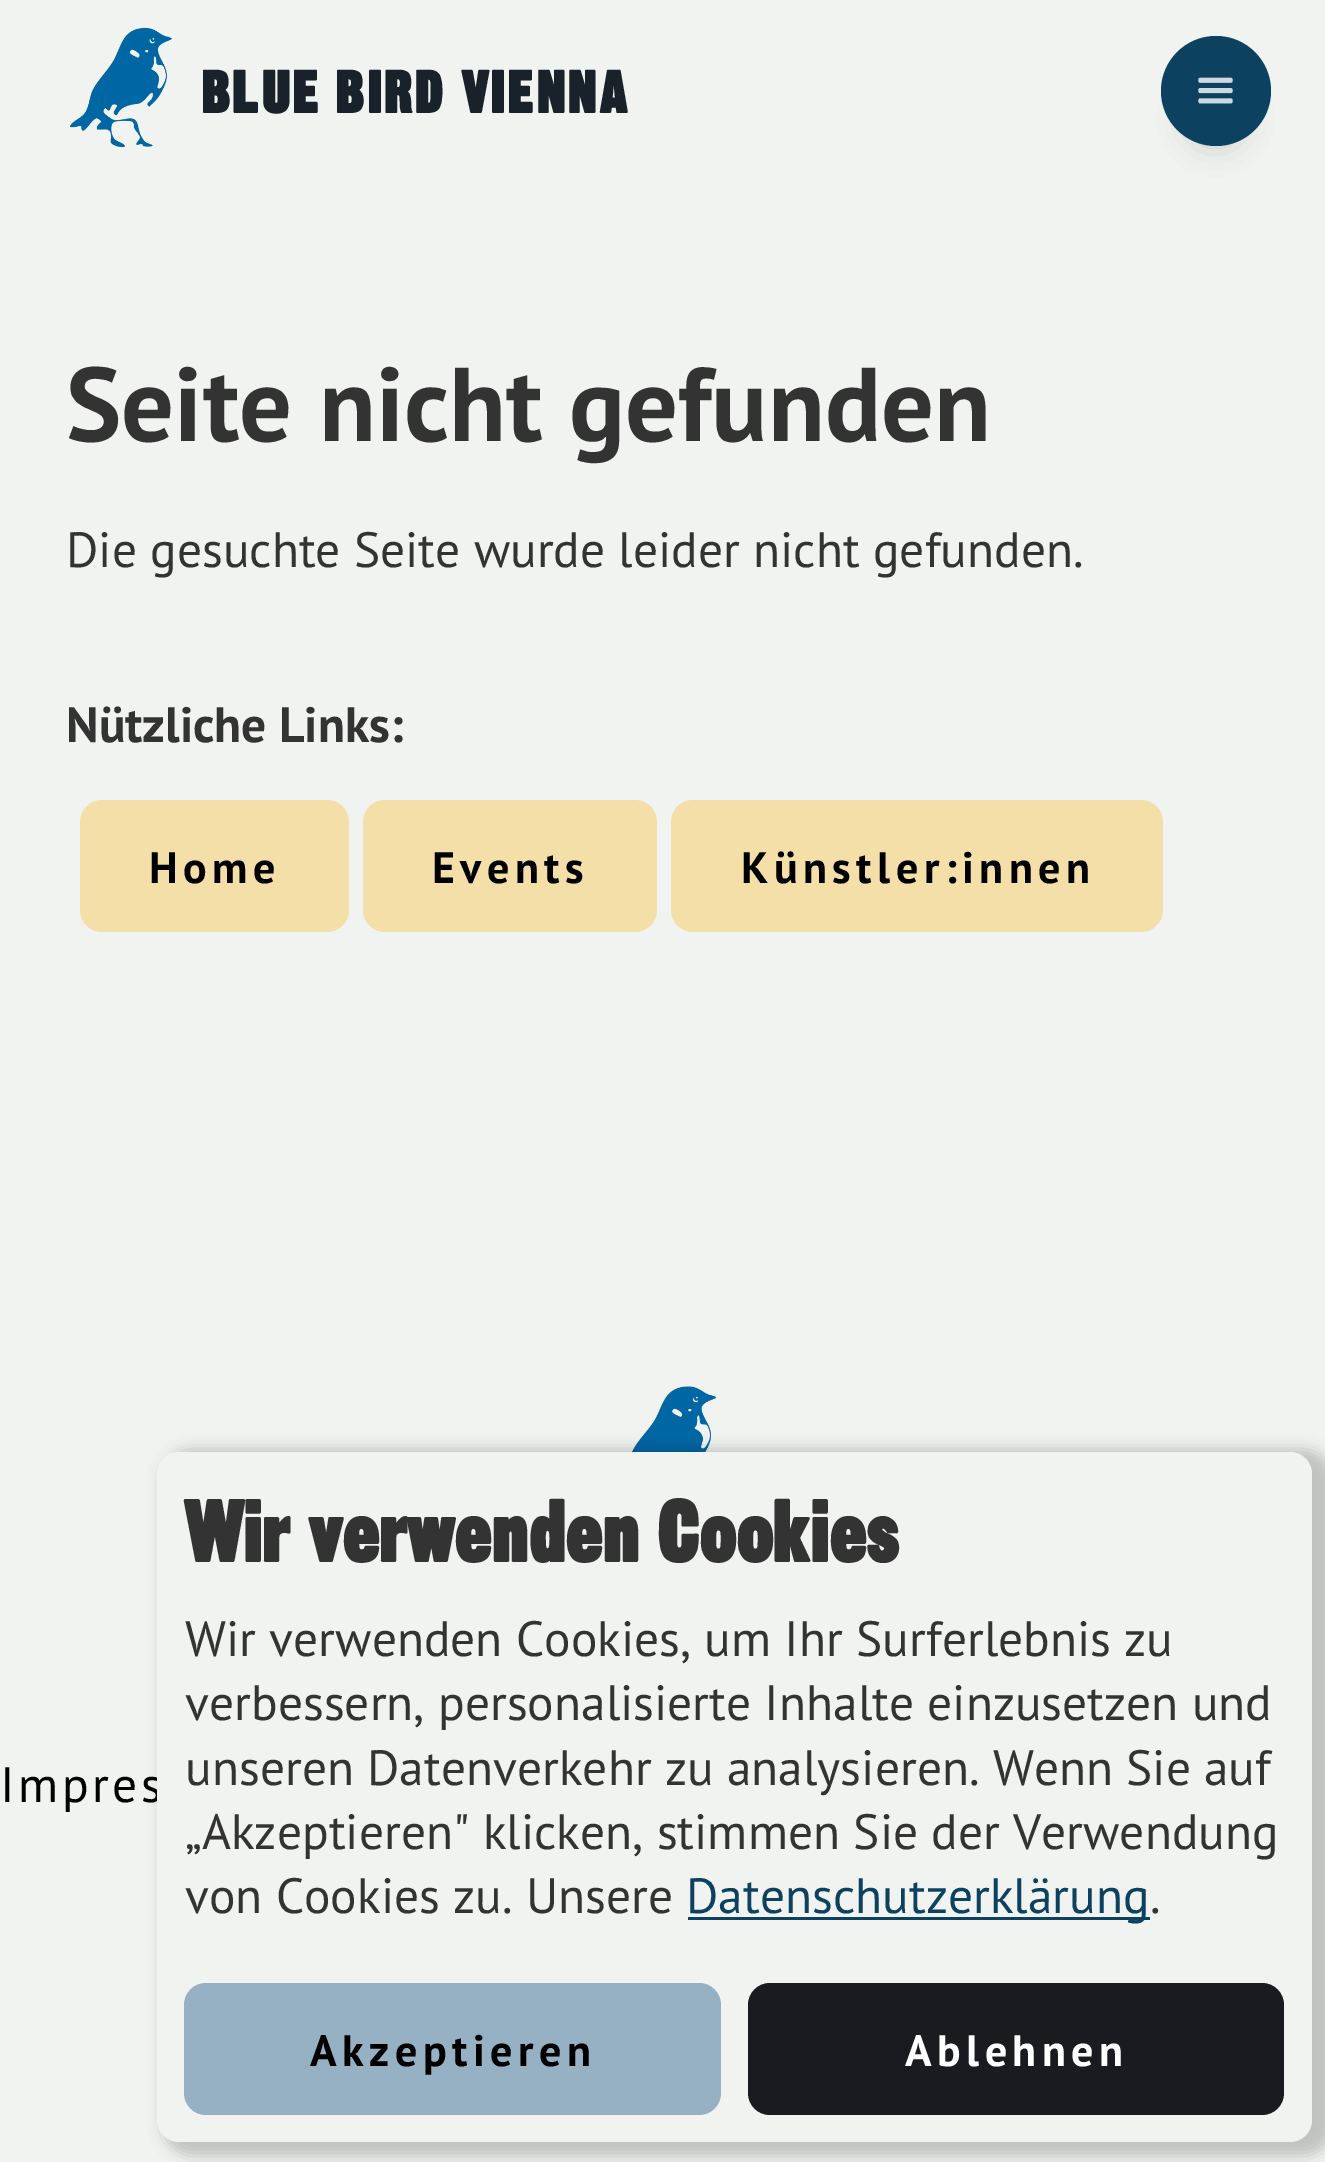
%!PS-Adobe-3.0
%%BoundingBox: 0 0 1325 2162
%%LanguageLevel: 3
%%Pages: 1
%%EndComments
%%BeginProlog
/setalpha { dup .setfillconstantalpha .setstrokeconstantalpha } def
/rrect { 5 dict begin { /r /h /w /y /x } { exch def } forall
  x r add y moveto x w add y 2 copy h add r arct x w add y h add x 1 index r arct
  x y h add x y r arct x y 2 copy exch w add exch r arct closepath end } def
/softshadow { 12 dict begin { /a /b /q /h /w /y /x } { exch def } forall gsave /was 0 def
  9 -2 -9 { dup b mul 4 div /e exch def 1 sub .425 mul 2.718 exch exp 1 add a .99 .min exch div /now exch def
    1 1 now sub 1 was sub div sub setalpha /was now def
    w h .min e 2 mul add 0 gt { x e sub y e sub w e 2 mul add h e 2 mul add
      q e add b .6 mul add w h .min 2 div e add .min 0 .max rrect fill } if } for grestore end } def
/drawimage { 5 dict begin { /h /w /y /x /name } { exch def } forall
  gsave x y translate w h scale
  w h 8 [w 0 0 h 0 0] name (r) file false 3 colorimage grestore end } def
%%EndProlog
%%BeginSetup
<< /PageSize [1325 2162] /PageUsesTransparency true >> setpagedevice
%%EndSetup
%%Page: 1 1
0 .pushpdf14devicefilter
0 2162 translate 1 -1 scale
4 setmiterlimit
0.945 0.953 0.941 setrgbcolor
0 0 1325 2162 rectfill
(images/1.raw) 70 27 102 121 drawimage
0.122 0.125 0.133 setrgbcolor
1188 91 55 55 27.5 14 0.2 softshadow
0.047 0.255 0.376 setrgbcolor
newpath 1216 91 55 0 360 arc closepath fill
(images/2.raw) 1198 77 35 27 drawimage
0.961 0.875 0.659 setrgbcolor
80 800 269 132 22 rrect fill
363 800 294 132 22 rrect fill
671 800 492 132 22 rrect fill
(images/3.raw) 631 1386 86 66 drawimage
0 setgray
162 1449 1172 707 30 7 0.2 softshadow
/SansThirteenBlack-Black [60.5 0 0 -60.5 0 0] selectfont
0.098 0.129 0.165 setrgbcolor
202 113 moveto 2.75 0 (BLUE BIRD VIENNA) ashow
/PTSans-Bold [104.5 0 0 -104.5 0 0] selectfont
0.2 setgray
66 441 moveto (Seite nicht gefunden) show
/PTSans-Regular [49.5 0 0 -49.5 0 0] selectfont
66 567 moveto (Die gesuchte Seite wurde leider nicht gefunden.) show
/PTSans-Bold [49.5 0 0 -49.5 0 0] selectfont
66 742 moveto (Nützliche Links:) show
/PTSans-Bold [44 0 0 -44 0 0] selectfont
0 setgray
149 883 moveto 5.5 0 (Home) ashow
432 883 moveto 5.5 0 (Events) ashow
741 883 moveto 5.5 0 (Künstler:innen) ashow
/PTSans-Regular [49.5 0 0 -49.5 0 0] selectfont
0 1802 moveto 3.5 0 (Impres) ashow
0.945 0.953 0.941 setrgbcolor
157 1452 1155 690 22 rrect fill
/SansThirteenBlack-Black [88 0 0 -88 0 0] selectfont
0.2 setgray
185 1562 moveto (Wir verwenden Cookies) show
/PTSans-Regular [49.5 0 0 -49.5 0 0] selectfont
185 1656 moveto (Wir verwenden Cookies, um Ihr Surferlebnis zu) show
185 1720 moveto (verbessern, personalisierte Inhalte einzusetzen und) show
185 1785 moveto (unseren Datenverkehr zu analysieren. Wenn Sie auf) show
185 1849 moveto („Akzeptieren" klicken, stimmen Sie der Verwendung) show
185 1913 moveto (von Cookies zu. Unsere) show
0.047 0.255 0.376 setrgbcolor
688 1917 462 3 rectfill
686 1913 moveto (Datenschutzerklärung) show
0.2 setgray
1150 1913 moveto (.) show
0.592 0.694 0.769 setrgbcolor
184 1983 537 132 22 rrect fill
/PTSans-Bold [44 0 0 -44 0 0] selectfont
0 setgray
310 2066 moveto 5.5 0 (Akzeptieren) ashow
0.102 0.106 0.122 setrgbcolor
748 1983 536 132 22 rrect fill
1 setgray
905 2066 moveto 5.5 0 (Ablehnen) ashow
.poppdf14devicefilter showpage
%%EOF
